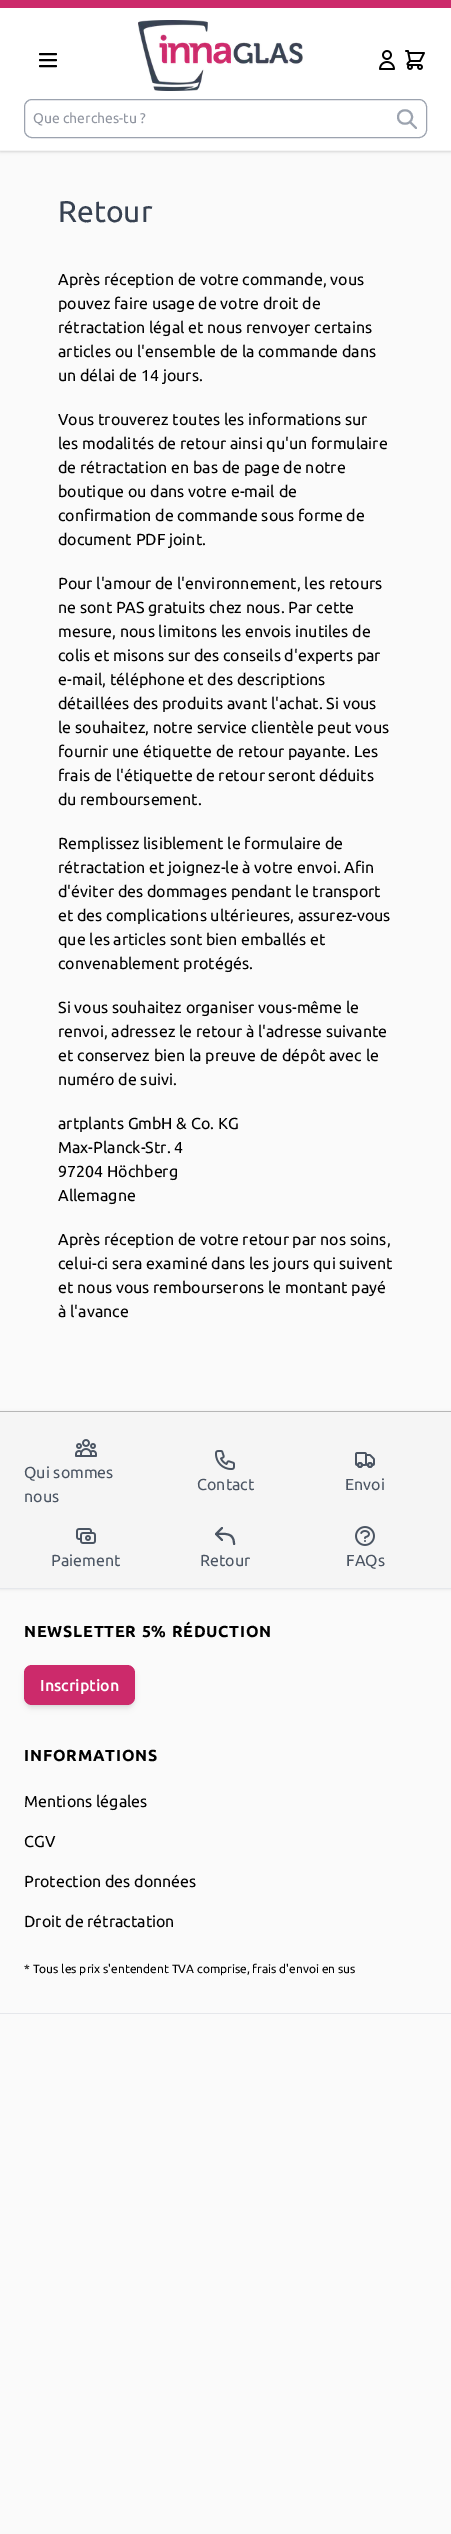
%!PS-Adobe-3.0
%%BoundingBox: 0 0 451 2534
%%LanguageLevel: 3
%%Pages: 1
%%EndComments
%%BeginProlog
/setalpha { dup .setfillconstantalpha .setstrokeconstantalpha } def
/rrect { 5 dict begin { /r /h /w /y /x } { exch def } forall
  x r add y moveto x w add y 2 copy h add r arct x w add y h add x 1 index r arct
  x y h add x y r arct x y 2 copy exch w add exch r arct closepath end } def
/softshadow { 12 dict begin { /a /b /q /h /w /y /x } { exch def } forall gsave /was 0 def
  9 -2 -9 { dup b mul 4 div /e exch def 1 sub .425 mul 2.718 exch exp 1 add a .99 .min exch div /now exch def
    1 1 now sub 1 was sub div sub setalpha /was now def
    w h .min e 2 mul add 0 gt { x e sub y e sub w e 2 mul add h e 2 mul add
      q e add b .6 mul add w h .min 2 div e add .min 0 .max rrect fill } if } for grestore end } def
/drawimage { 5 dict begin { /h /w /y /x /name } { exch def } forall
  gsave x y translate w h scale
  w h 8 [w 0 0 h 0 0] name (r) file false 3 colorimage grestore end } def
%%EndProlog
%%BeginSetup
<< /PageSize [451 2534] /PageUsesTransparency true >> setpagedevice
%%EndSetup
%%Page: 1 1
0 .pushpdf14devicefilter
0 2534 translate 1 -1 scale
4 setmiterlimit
0.98 setgray
0 0 451 2534 rectfill
0 setgray
1 2 449 149 0 1 0.1 softshadow
0 1 451 151 0 1.5 0.1 softshadow
1 setgray
0 8 451 142 rectfill
0.8 0.165 0.42 setrgbcolor
0 0 451 8 rectfill
0.961 setgray
0 150 451 1 rectfill
0 setgray
2 setlinewidth
1 setlinecap
1 setlinejoin
newpath 40 54 moveto 56 54 lineto 40 60 moveto 56 60 lineto 40 66 moveto 56 66 lineto stroke
(images/1.raw) 138 20 165 71 drawimage
(images/2.raw) 379 50 16 20 drawimage
(images/3.raw) 405 50 20 20 drawimage
0.612 0.639 0.686 setrgbcolor
1 setlinewidth
0 setlinecap
0 setlinejoin
24.5 99.5 402 38 7.5 rrect stroke
2 setlinewidth
1 setlinecap
1 setlinejoin
newpath 416 128 moveto 410 122 lineto 412 117 moveto 412 126 398 126 398 117 curveto 398 108 412 108 412 117 curveto closepath stroke
0 setgray
0 1412 451 177 0 1.5 0.1 softshadow
0.961 setgray
0 1412 451 176 rectfill
0.714 setgray
0 1411 451 1 rectfill
(images/4.raw) 75 1439 22 18 drawimage
(images/5.raw) 215 1450 20 20 drawimage
(images/6.raw) 355 1452 20 16 drawimage
(images/7.raw) 76 1528 20 16 drawimage
0.294 0.333 0.388 setrgbcolor
newpath 216 1534 moveto 225 1534 234 1532 234 1544 curveto 216 1534 moveto 222 1540 lineto 216 1534 moveto 222 1528 lineto stroke
(images/8.raw) 355 1526 20 20 drawimage
0.898 0.906 0.922 setrgbcolor
0 1588 451 1 rectfill
0 2013 451 1 rectfill
0 setgray
26 1669 107 36 6 2 0.1 softshadow
25 1670 109 38 7 3 0.1 softshadow
0.8 0.165 0.42 setrgbcolor
24 1665 111 40 8 rrect fill
/Ubuntu-Regular [14 0 0 -14 0 0] selectfont
0.565 0.584 0.627 setrgbcolor
33 123 moveto (Que cherches-tu ?) show
/Ubuntu-Regular [30 0 0 -30 0 0] selectfont
0.216 0.255 0.318 setrgbcolor
58 222 moveto (Retour) show
/Ubuntu-Regular [16 0 0 -16 0 0] selectfont
0 setgray
58 285 moveto (Après réception de votre commande, vous) show
58 309 moveto (pouvez faire usage de votre droit de) show
58 333 moveto (rétractation légal et nous renvoyer certains) show
58 357 moveto (articles ou l'ensemble de la commande dans) show
58 381 moveto (un délai de 14 jours.) show
58 425 moveto (Vous trouverez toutes les informations sur) show
58 449 moveto (les modalités de retour ainsi qu'un formulaire) show
58 473 moveto (de rétractation en bas de page de notre) show
58 497 moveto (boutique ou dans votre e-mail de) show
58 521 moveto (confirmation de commande sous forme de) show
58 545 moveto (document PDF joint.) show
58 589 moveto (Pour l'amour de l'environnement, les retours) show
58 613 moveto (ne sont PAS gratuits chez nous. Par cette) show
58 637 moveto (mesure, nous limitons les envois inutiles de) show
58 661 moveto (colis et misons sur des conseils d'experts par) show
58 685 moveto (e-mail, téléphone et des descriptions) show
58 709 moveto (détaillées des produits avant l'achat. Si vous) show
58 733 moveto (le souhaitez, notre service clientèle peut vous) show
58 757 moveto (fournir une étiquette de retour payante. Les) show
58 781 moveto (frais de l'étiquette de retour seront déduits) show
58 805 moveto (du remboursement.) show
58 849 moveto (Remplissez lisiblement le formulaire de) show
58 873 moveto (rétractation et joignez-le à votre envoi. Afin) show
58 897 moveto (d'éviter des dommages pendant le transport) show
58 921 moveto (et des complications ultérieures, assurez-vous) show
58 945 moveto (que les articles sont bien emballés et) show
58 969 moveto (convenablement protégés.) show
58 1013 moveto (Si vous souhaitez organiser vous-même le) show
58 1037 moveto (renvoi, adressez le retour à l'adresse suivante) show
58 1061 moveto (et conservez bien la preuve de dépôt avec le) show
58 1085 moveto (numéro de suivi.) show
58 1129 moveto (artplants GmbH & Co. KG) show
58 1153 moveto (Max-Planck-Str. 4) show
58 1177 moveto (97204 Höchberg) show
58 1201 moveto (Allemagne) show
58 1245 moveto (Après réception de votre retour par nos soins,) show
58 1269 moveto (celui-ci sera examiné dans les jours qui suivent) show
58 1293 moveto (et nous vous rembourserons le montant payé) show
58 1317 moveto (à l'avance) show
0.294 0.333 0.388 setrgbcolor
24 1478 moveto (Qui sommes) show
24 1502 moveto (nous) show
197 1490 moveto (Contact) show
345 1490 moveto (Envoi) show
51 1566 moveto (Paiement) show
200 1566 moveto (Retour) show
346 1566 moveto (FAQs) show
/Ubuntu-Bold [16 0 0 -16 0 0] selectfont
0 setgray
24 1637 moveto 0.8 0 (NEWSLETTER 5% RÉDUCTION) ashow
/Ubuntu-Medium [16 0 0 -16 0 0] selectfont
1 setgray
40 1691 moveto (Inscription) show
/Ubuntu-Bold [16 0 0 -16 0 0] selectfont
0 setgray
24 1761 moveto 0.8 0 (INFORMATIONS) ashow
/Ubuntu-Regular [16 0 0 -16 0 0] selectfont
24 1807 moveto (Mentions légales) show
24 1847 moveto (CGV) show
24 1887 moveto (Protection des données) show
24 1927 moveto (Droit de rétractation) show
/Ubuntu-Regular [12 0 0 -12 0 0] selectfont
24 1973 moveto (* Tous les prix s'entendent TVA comprise, frais d'envoi en sus) show
.poppdf14devicefilter showpage
%%EOF
